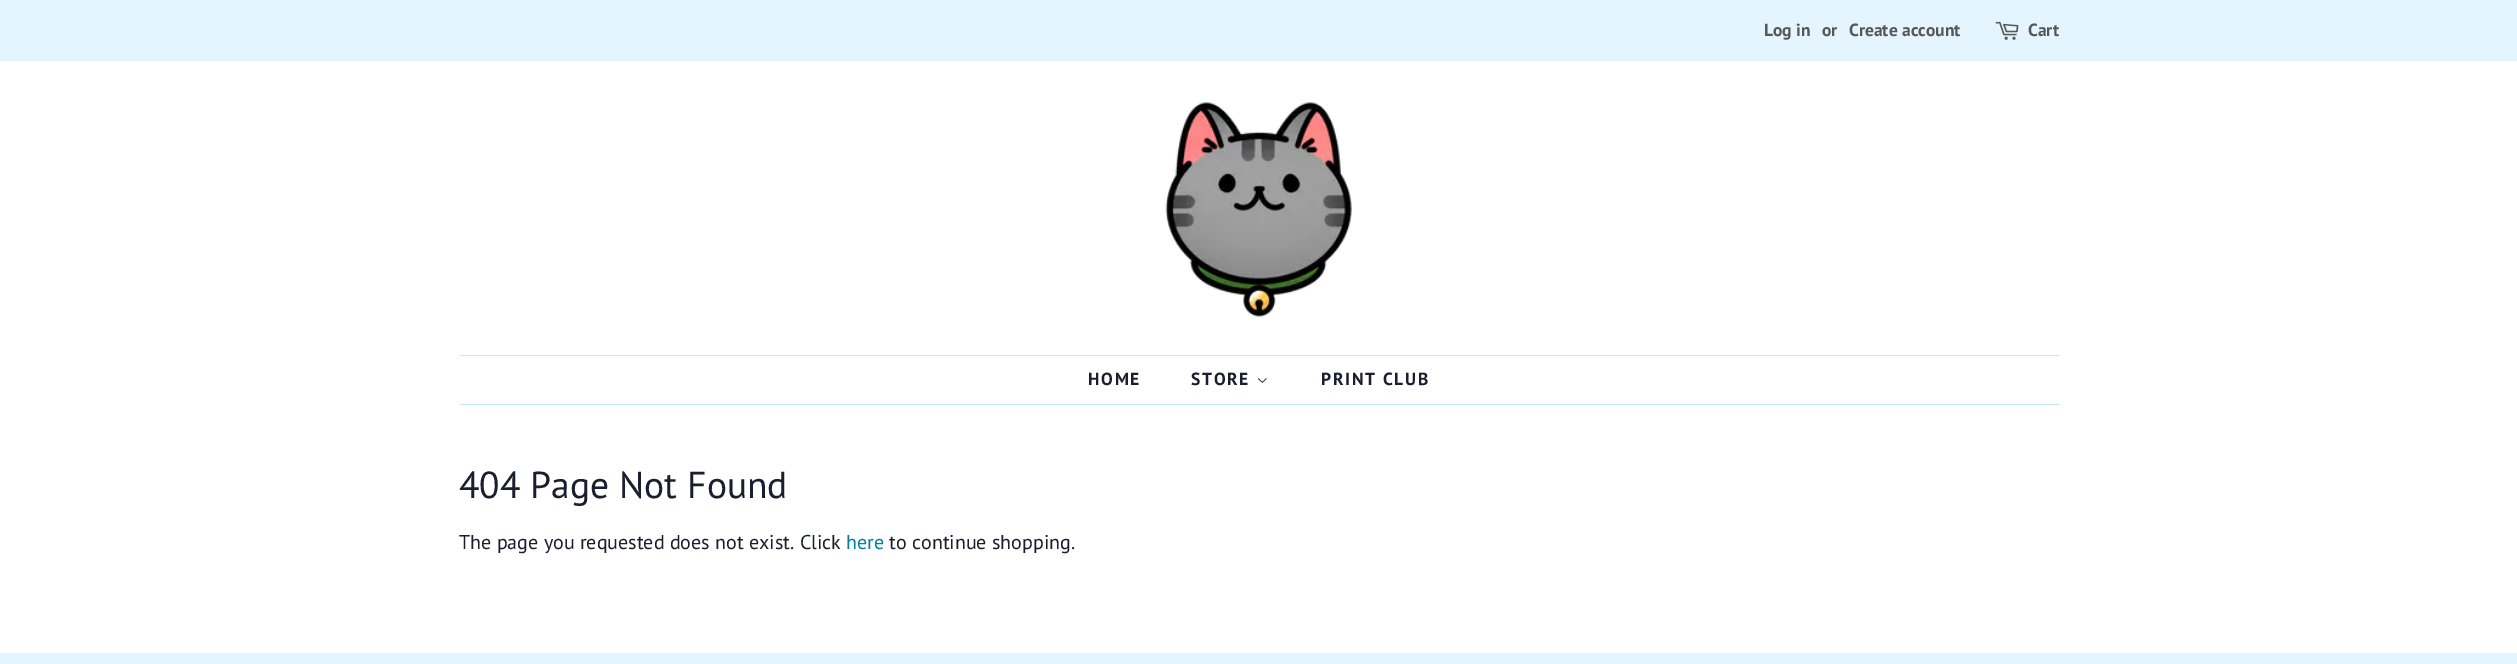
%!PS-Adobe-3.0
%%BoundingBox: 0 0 2517 664
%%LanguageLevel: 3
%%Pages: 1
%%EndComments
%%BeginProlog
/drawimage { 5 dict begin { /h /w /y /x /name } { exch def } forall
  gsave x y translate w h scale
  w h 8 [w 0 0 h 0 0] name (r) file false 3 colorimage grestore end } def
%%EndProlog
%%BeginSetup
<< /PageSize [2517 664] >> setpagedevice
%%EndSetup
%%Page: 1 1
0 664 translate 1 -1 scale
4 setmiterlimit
1 setgray
0 0 2517 664 rectfill
0.898 0.961 1 setrgbcolor
0 0 2517 61 rectfill
(images/1.raw) 1995 21 24 19 drawimage
(images/2.raw) 1165 102 187 215 drawimage
0.765 0.91 1 setrgbcolor
459 355 1600 1 rectfill
459 404 1600 1 rectfill
(images/3.raw) 1258 378 9 5 drawimage
0.898 0.961 1 setrgbcolor
0 653 2517 11 rectfill
/PTSans-Bold [17.5 0 0 -17.5 0 0] selectfont
0.341 setgray
1764 36 moveto (Log in) show
1822 36 moveto (or) show
1849 36 moveto (Create account) show
2028 36 moveto (Cart) show
0.106 0.118 0.184 setrgbcolor
1088 385 moveto 1.75 0 (HOME) ashow
1191 385 moveto 1.75 0 (STORE) ashow
1321 385 moveto 1.75 0 (PRINT CLUB) ashow
/PTSans-Regular [37.5 0 0 -37.5 0 0] selectfont
459 498 moveto (404 Page Not Found) show
/PTSans-Regular [20 0 0 -20 0 0] selectfont
459 549 moveto (The page you requested does not exist. Click) show
0 0.506 0.639 setrgbcolor
846 549 moveto (here) show
0.106 0.118 0.184 setrgbcolor
889 549 moveto (to continue shopping.) show
showpage
%%EOF
